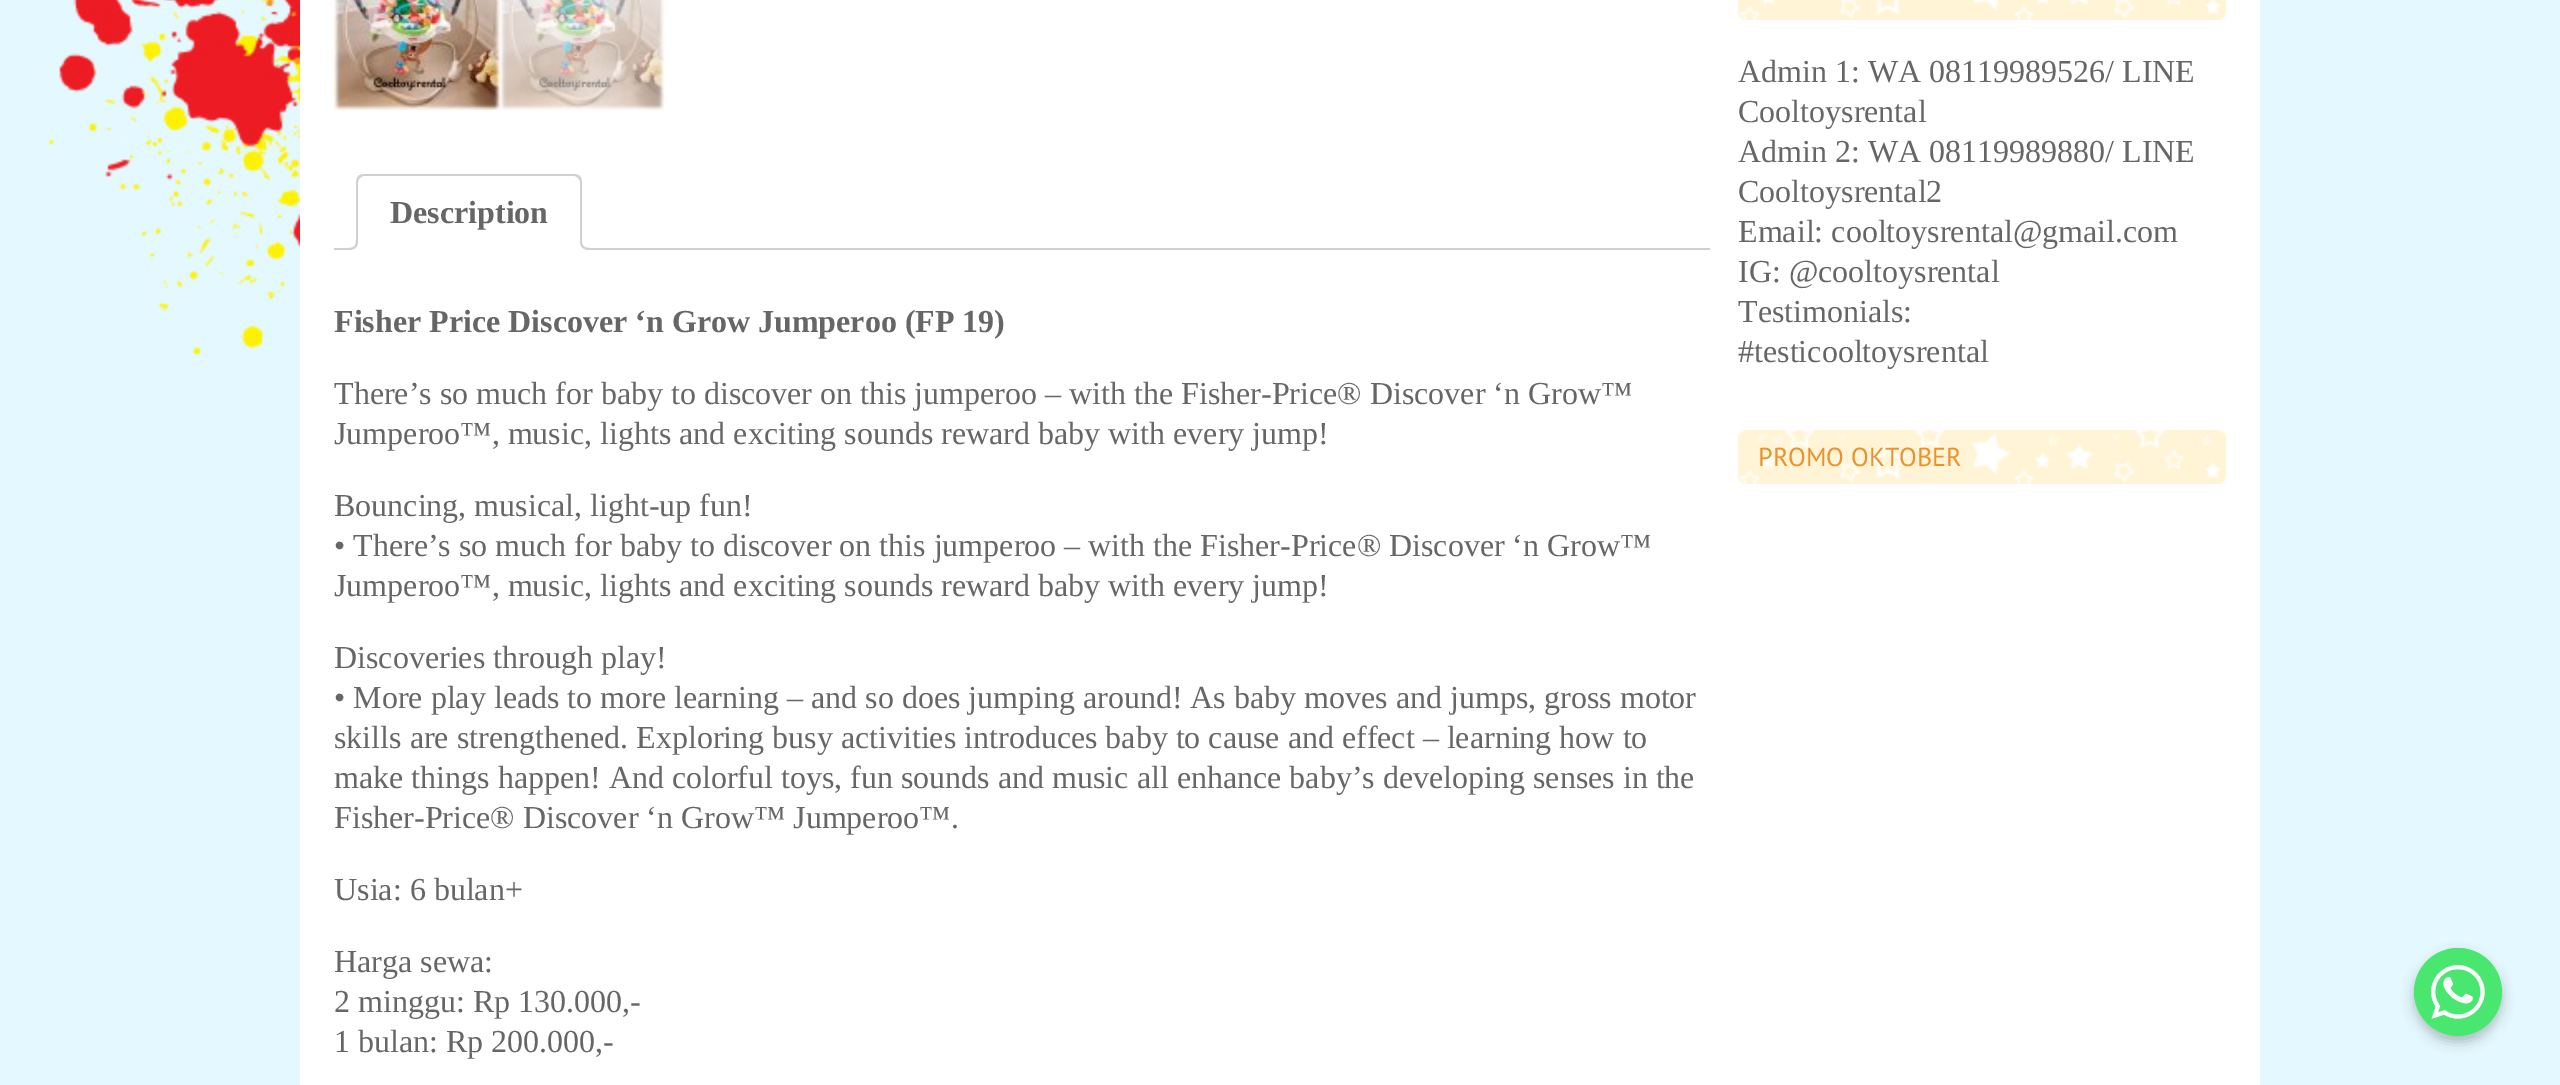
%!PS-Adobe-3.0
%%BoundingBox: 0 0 2560 1085
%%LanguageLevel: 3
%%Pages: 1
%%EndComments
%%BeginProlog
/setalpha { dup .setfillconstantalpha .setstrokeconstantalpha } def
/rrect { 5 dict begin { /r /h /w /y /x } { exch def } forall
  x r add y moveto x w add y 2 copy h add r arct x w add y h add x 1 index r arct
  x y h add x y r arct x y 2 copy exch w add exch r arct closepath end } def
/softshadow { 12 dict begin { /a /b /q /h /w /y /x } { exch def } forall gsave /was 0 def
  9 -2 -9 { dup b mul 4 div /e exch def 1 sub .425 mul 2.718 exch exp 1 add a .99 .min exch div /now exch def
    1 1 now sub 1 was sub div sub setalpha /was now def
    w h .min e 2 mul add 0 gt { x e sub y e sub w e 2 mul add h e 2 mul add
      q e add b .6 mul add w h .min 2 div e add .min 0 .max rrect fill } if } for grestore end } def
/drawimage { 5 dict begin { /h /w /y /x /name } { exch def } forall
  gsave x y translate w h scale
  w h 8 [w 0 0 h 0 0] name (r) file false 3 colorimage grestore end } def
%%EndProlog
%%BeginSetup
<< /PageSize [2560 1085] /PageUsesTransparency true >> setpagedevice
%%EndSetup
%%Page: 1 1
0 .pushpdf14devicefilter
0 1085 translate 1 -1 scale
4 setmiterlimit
0.894 0.976 1 setrgbcolor
0 0 2560 1085 rectfill
(images/1.raw) 47 0 253 355 drawimage
1 setgray
300 0 1960 1085 rectfill
(images/2.raw) 334 0 166 110 drawimage
(images/3.raw) 500 0 164 110 drawimage
0.827 0.808 0.824 setrgbcolor
334 248 1376 2 rectfill
1 setgray
newpath 364 174 moveto 574 174 lineto 578.5 174 582 177.5 582 182 curveto 582 250 lineto 356 250 lineto 356 182 lineto 356 177.5 359.5 174 364 174 curveto closepath fill
0.827 0.808 0.824 setrgbcolor
newpath 364 174 moveto 362 174 360 175 358 176 curveto 360 178 lineto 361 177 362 176 364 176 curveto 574 176 lineto 576 176 577 177 578 178 curveto 580 176 lineto 578 175 576 174 574 174 curveto closepath fill
newpath 582 250 moveto 582 182 lineto 582 180 581 178 580 176 curveto 578 178 lineto 579 179 580 180 580 182 curveto 580 248 lineto closepath fill
1 setgray
newpath 582 250 moveto 580 248 lineto 358 248 lineto 356 250 lineto closepath fill
0.827 0.808 0.824 setrgbcolor
newpath 356 250 moveto 358 248 lineto 358 182 lineto 358 180 359 179 360 178 curveto 358 176 lineto 357 178 356 180 356 182 curveto closepath fill
gsave
334 174 1376 76 rectclip
1 setgray
newpath 352 249.5 moveto 352 254 lineto 359 254 362 251 362 244 curveto 357.5 244 lineto 357 247 355 249 352 249.5 curveto closepath fill
grestore
newpath 348 240 moveto 358 240 lineto 358 247 355 250 348 250 curveto closepath 348 240 moveto 356 240 lineto 356 246 354 248 348 248 curveto closepath eofill
gsave
334 174 1376 76 rectclip
1 setgray
newpath 576 244 moveto 576 251 579 254 586 254 curveto 586 249.5 lineto 583 249 581 247 580.5 244 curveto closepath fill
grestore
newpath 580 240 moveto 590 240 lineto 590 250 lineto 585 250 580 248 580 242 curveto closepath 582 240 moveto 590 240 lineto 590 248 lineto 586 248 582 247 582 242 curveto closepath eofill
(images/4.raw) 1738 0 488 20 drawimage
(images/5.raw) 1738 430 488 54 drawimage
0 setgray
2414 954 88 88 44 6 0.25 softshadow
(images/6.raw) 2414 948 88 88 drawimage
/LiberationSerif-Bold [32 0 0 -32 0 0] selectfont
0.4 setgray
390 223 moveto (Description) show
334 332 moveto (Fisher Price Discover ‘n Grow Jumperoo \(FP 19\)) show
/LiberationSerif-Regular [32 0 0 -32 0 0] selectfont
334 404 moveto (There’s so much for baby to discover on this jumperoo – with the Fisher-Price® Discover ‘n Grow™) show
334 444 moveto (Jumperoo™, music, lights and exciting sounds reward baby with every jump!) show
334 516 moveto (Bouncing, musical, light-up fun!) show
334 556 moveto (• There’s so much for baby to discover on this jumperoo – with the Fisher-Price® Discover ‘n Grow™) show
334 596 moveto (Jumperoo™, music, lights and exciting sounds reward baby with every jump!) show
334 668 moveto (Discoveries through play!) show
334 708 moveto (• More play leads to more learning – and so does jumping around! As baby moves and jumps, gross motor) show
334 748 moveto (skills are strengthened. Exploring busy activities introduces baby to cause and effect – learning how to) show
334 788 moveto (make things happen! And colorful toys, fun sounds and music all enhance baby’s developing senses in the) show
334 828 moveto (Fisher-Price® Discover ‘n Grow™ Jumperoo™.) show
334 900 moveto (Usia: 6 bulan+) show
334 972 moveto (Harga sewa:) show
334 1012 moveto (2 minggu: Rp 130.000,-) show
334 1052 moveto (1 bulan: Rp 200.000,-) show
1738 82 moveto (Admin 1: WA 08119989526/ LINE) show
1738 122 moveto (Cooltoysrental) show
1738 162 moveto (Admin 2: WA 08119989880/ LINE) show
1738 202 moveto (Cooltoysrental2) show
1738 242 moveto (Email: cooltoysrental@gmail.com) show
1738 282 moveto (IG: @cooltoysrental) show
1738 322 moveto (Testimonials:) show
1738 362 moveto (#testicooltoysrental) show
/PTSans-Regular [26 0 0 -26 0 0] selectfont
0.929 0.569 0.165 setrgbcolor
1758 466 moveto (PROMO OKTOBER) show
.poppdf14devicefilter showpage
%%EOF
